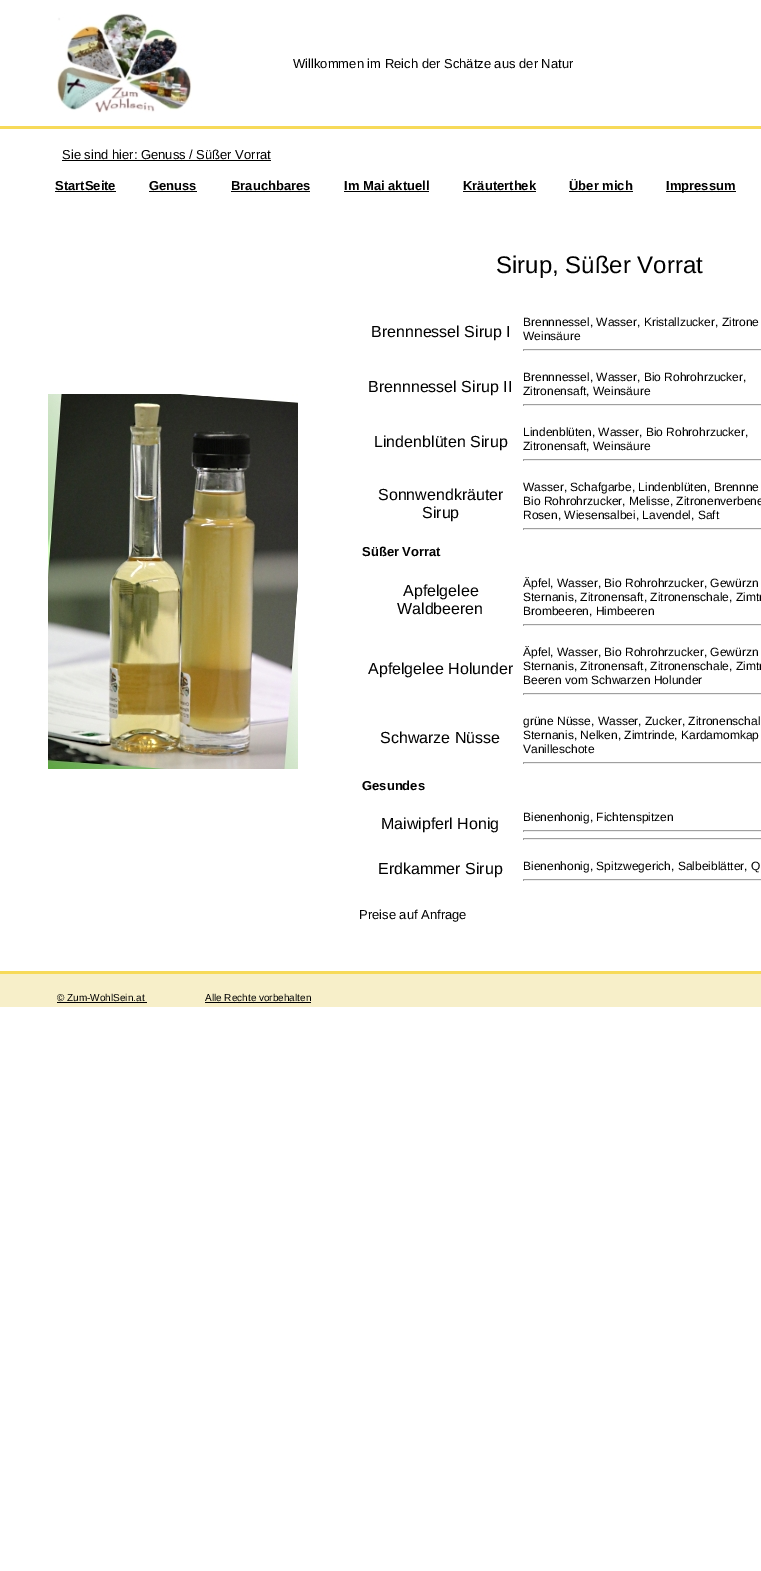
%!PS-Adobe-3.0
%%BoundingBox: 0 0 761 1571
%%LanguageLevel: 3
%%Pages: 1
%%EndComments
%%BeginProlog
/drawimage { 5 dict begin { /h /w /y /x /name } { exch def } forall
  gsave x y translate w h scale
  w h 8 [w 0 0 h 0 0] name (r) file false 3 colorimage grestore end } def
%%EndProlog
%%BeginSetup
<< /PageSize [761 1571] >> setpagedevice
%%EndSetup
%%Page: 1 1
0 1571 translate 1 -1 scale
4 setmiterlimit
1 setgray
0 0 761 1571 rectfill
0.969 0.855 0.349 setrgbcolor
0 126 761 3 rectfill
(images/1.raw) 57 13 135 100 drawimage
0 setgray
62 160 209 1 rectfill
55 191 61 1 rectfill
149 191 48 1 rectfill
231 191 79 1 rectfill
344 191 85 1 rectfill
463 191 73 1 rectfill
569 191 64 1 rectfill
666 191 70 1 rectfill
(images/2.raw) 48 394 250 375 drawimage
0.624 setgray
523 349 238 1 rectfill
0.933 setgray
523 350 238 1 rectfill
0.624 setgray
523 349 1 2 rectfill
523 404 238 1 rectfill
0.933 setgray
523 405 238 1 rectfill
0.624 setgray
523 404 1 2 rectfill
523 459 238 1 rectfill
0.933 setgray
523 460 238 1 rectfill
0.624 setgray
523 459 1 2 rectfill
523 528 238 1 rectfill
0.933 setgray
523 529 238 1 rectfill
0.624 setgray
523 528 1 2 rectfill
523 624 238 1 rectfill
0.933 setgray
523 625 238 1 rectfill
0.624 setgray
523 624 1 2 rectfill
523 693 238 1 rectfill
0.933 setgray
523 694 238 1 rectfill
0.624 setgray
523 693 1 2 rectfill
523 762 238 1 rectfill
0.933 setgray
523 763 238 1 rectfill
0.624 setgray
523 762 1 2 rectfill
523 830 238 1 rectfill
0.933 setgray
523 831 238 1 rectfill
0.624 setgray
523 830 1 2 rectfill
523 838 238 1 rectfill
0.933 setgray
523 839 238 1 rectfill
0.624 setgray
523 838 1 2 rectfill
523 879 238 1 rectfill
0.933 setgray
523 880 238 1 rectfill
0.624 setgray
523 879 1 2 rectfill
0.969 0.937 0.788 setrgbcolor
0 974 761 33 rectfill
0.969 0.855 0.349 setrgbcolor
0 971 761 3 rectfill
0 setgray
57 1002 90 1 rectfill
205 1002 106 1 rectfill
/LiberationSans-Regular [13 0 0 -13 0 0] selectfont
293 68 moveto (Willkommen im Reich der Schätze aus der Natur) show
62 159 moveto (Sie sind hier: Genuss / Süßer Vorrat) show
/LiberationSans-Bold [13 0 0 -13 0 0] selectfont
55 190 moveto (StartSeite) show
149 190 moveto (Genuss) show
231 190 moveto (Brauchbares) show
344 190 moveto (Im Mai aktuell) show
463 190 moveto (Kräuterthek) show
569 190 moveto (Über mich) show
666 190 moveto (Impressum) show
/LiberationSans-Regular [24 0 0 -24 0 0] selectfont
496 273 moveto (Sirup, Süßer Vorrat) show
/LiberationSans-Regular [16 0 0 -16 0 0] selectfont
371 337 moveto (Brennnessel Sirup I) show
/LiberationSans-Regular [12 0 0 -12 0 0] selectfont
523 326 moveto (Brennnessel, Wasser, Kristallzucker, Zitrone) show
523 340 moveto (Weinsäure) show
/LiberationSans-Regular [16 0 0 -16 0 0] selectfont
368 392 moveto (Brennnessel Sirup II) show
/LiberationSans-Regular [12 0 0 -12 0 0] selectfont
523 381 moveto (Brennnessel, Wasser, Bio Rohrohrzucker,) show
523 395 moveto (Zitronensaft, Weinsäure) show
/LiberationSans-Regular [16 0 0 -16 0 0] selectfont
374 447 moveto (Lindenblüten Sirup) show
/LiberationSans-Regular [12 0 0 -12 0 0] selectfont
523 436 moveto (Lindenblüten, Wasser, Bio Rohrohrzucker,) show
523 450 moveto (Zitronensaft, Weinsäure) show
/LiberationSans-Regular [16 0 0 -16 0 0] selectfont
378 500 moveto (Sonnwendkräuter) show
422 518 moveto (Sirup) show
/LiberationSans-Regular [12 0 0 -12 0 0] selectfont
523 491 moveto (Wasser, Schafgarbe, Lindenblüten, Brennne) show
523 505 moveto (Bio Rohrohrzucker, Melisse, Zitronenverbene) show
523 519 moveto (Rosen, Wiesensalbei, Lavendel, Saft) show
/LiberationSans-Bold [13 0 0 -13 0 0] selectfont
362 556 moveto (Süßer Vorrat) show
/LiberationSans-Regular [16 0 0 -16 0 0] selectfont
403 596 moveto (Apfelgelee) show
397 614 moveto (Waldbeeren) show
/LiberationSans-Regular [12 0 0 -12 0 0] selectfont
523 587 moveto (Äpfel, Wasser, Bio Rohrohrzucker, Gewürzn) show
523 601 moveto (Sternanis, Zitronensaft, Zitronenschale, Zimtr) show
523 615 moveto (Brombeeren, Himbeeren) show
/LiberationSans-Regular [16 0 0 -16 0 0] selectfont
368 674 moveto (Apfelgelee Holunder) show
/LiberationSans-Regular [12 0 0 -12 0 0] selectfont
523 656 moveto (Äpfel, Wasser, Bio Rohrohrzucker, Gewürzn) show
523 670 moveto (Sternanis, Zitronensaft, Zitronenschale, Zimtr) show
523 684 moveto (Beeren vom Schwarzen Holunder) show
/LiberationSans-Regular [16 0 0 -16 0 0] selectfont
380 743 moveto (Schwarze Nüsse) show
/LiberationSans-Regular [12 0 0 -12 0 0] selectfont
523 725 moveto (grüne Nüsse, Wasser, Zucker, Zitronenschal) show
523 739 moveto (Sternanis, Nelken, Zimtrinde, Kardamomkap) show
523 753 moveto (Vanilleschote) show
/LiberationSans-Bold [13 0 0 -13 0 0] selectfont
362 790 moveto (Gesundes) show
/LiberationSans-Regular [16 0 0 -16 0 0] selectfont
381 829 moveto (Maiwipferl Honig) show
/LiberationSans-Regular [12 0 0 -12 0 0] selectfont
523 821 moveto (Bienenhonig, Fichtenspitzen) show
/LiberationSans-Regular [16 0 0 -16 0 0] selectfont
378 874 moveto (Erdkammer Sirup) show
/LiberationSans-Regular [12 0 0 -12 0 0] selectfont
523 870 moveto (Bienenhonig, Spitzwegerich, Salbeiblätter, Q) show
/LiberationSans-Regular [13 0 0 -13 0 0] selectfont
359 919 moveto (Preise auf Anfrage) show
/LiberationSans-Regular [10 0 0 -10 0 0] selectfont
57 1001 moveto (© Zum-WohlSein.at) show
205 1001 moveto (Alle Rechte vorbehalten) show
showpage
%%EOF
